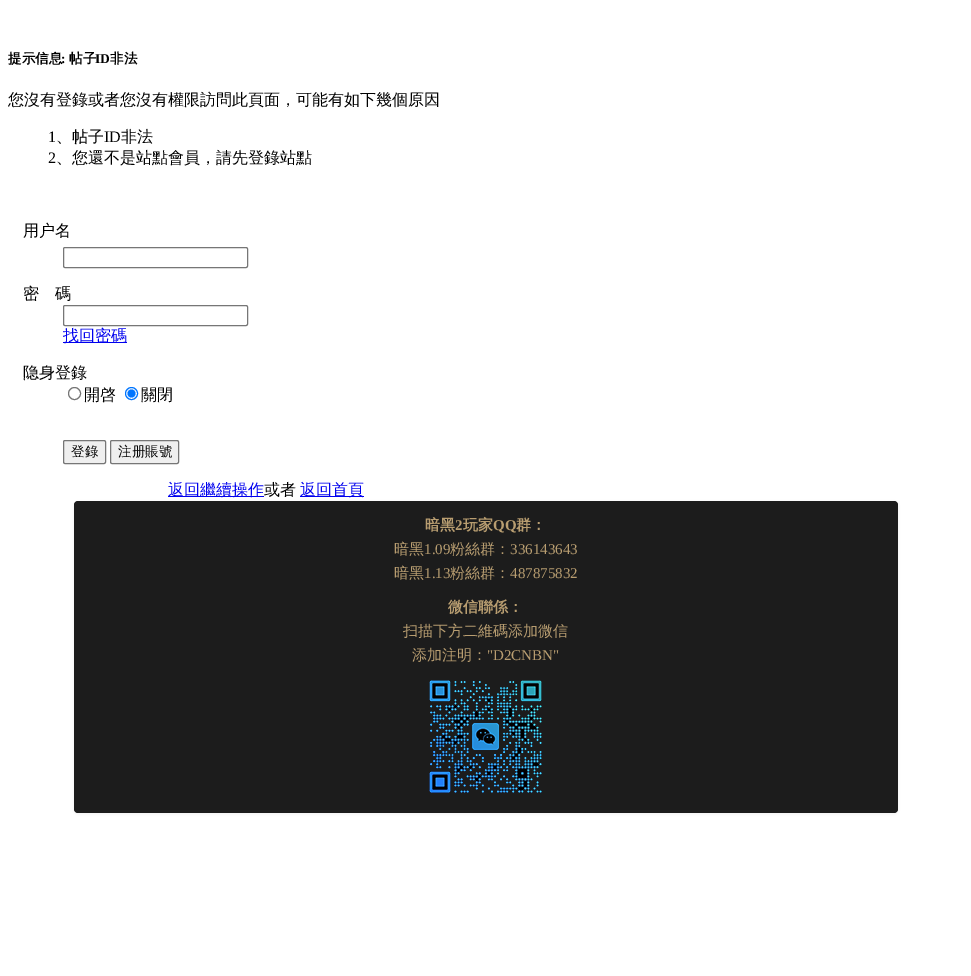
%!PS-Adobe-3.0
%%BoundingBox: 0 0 971 976
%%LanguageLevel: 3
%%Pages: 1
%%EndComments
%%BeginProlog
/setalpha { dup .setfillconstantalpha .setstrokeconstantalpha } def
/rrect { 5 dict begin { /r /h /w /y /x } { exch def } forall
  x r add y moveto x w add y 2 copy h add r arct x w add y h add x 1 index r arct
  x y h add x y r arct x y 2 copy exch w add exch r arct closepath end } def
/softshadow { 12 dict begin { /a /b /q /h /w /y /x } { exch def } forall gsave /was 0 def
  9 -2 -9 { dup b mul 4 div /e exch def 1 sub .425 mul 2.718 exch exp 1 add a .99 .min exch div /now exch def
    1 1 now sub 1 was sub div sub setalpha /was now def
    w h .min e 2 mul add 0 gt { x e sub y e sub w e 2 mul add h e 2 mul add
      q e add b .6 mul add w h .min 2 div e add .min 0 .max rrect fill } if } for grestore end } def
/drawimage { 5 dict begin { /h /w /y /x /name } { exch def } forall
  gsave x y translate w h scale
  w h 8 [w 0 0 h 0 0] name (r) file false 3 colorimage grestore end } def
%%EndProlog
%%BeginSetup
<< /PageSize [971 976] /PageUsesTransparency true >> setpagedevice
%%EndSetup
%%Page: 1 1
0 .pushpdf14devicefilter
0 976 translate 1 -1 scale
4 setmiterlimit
1 setgray
0 0 971 976 rectfill
0.463 setgray
63.5 247.5 184 20 1.5 rrect stroke
63.5 305.5 184 20 1.5 rrect stroke
0 0 0.933 setrgbcolor
63 342 64 1 rectfill
0.463 setgray
newpath 74.5 393.5 6 0 360 arc closepath stroke
0 0.459 1 setrgbcolor
newpath 131.5 393.5 6 0 360 arc closepath stroke
newpath 131.5 393.5 4 0 360 arc closepath fill
0.937 setgray
63.5 440.5 42 23 1.5 rrect gsave fill grestore
0.463 setgray
stroke
0.937 setgray
110.5 440.5 68 23 1.5 rrect gsave fill grestore
0.463 setgray
stroke
0 setgray
74 502 824 312 4 1.5 0.05 softshadow
0 0 0.933 setrgbcolor
168 496 96 1 rectfill
300 496 64 1 rectfill
0.11 setgray
74 501 824 312 4 rrect fill
(images/1.raw) 429 680 113 113 drawimage
/WenQuanYiZenHei-Bold [13.5 0 0 -13.5 0 0] selectfont
0 setgray
8 63 moveto (提示信息) show
/LiberationSerif-Bold [13.5 0 0 -13.5 0 0] selectfont
61 63 moveto (:) show
/WenQuanYiZenHei-Bold [13.5 0 0 -13.5 0 0] selectfont
69 63 moveto (帖子) show
/LiberationSerif-Bold [13.5 0 0 -13.5 0 0] selectfont
95 63 moveto (ID) show
/WenQuanYiZenHei-Bold [13.5 0 0 -13.5 0 0] selectfont
110 63 moveto (非法) show
/WenQuanYiZenHei-Medium [16 0 0 -16 0 0] selectfont
8 105 moveto (您沒有登錄或者您沒有權限訪問此頁面，可能有如下幾個原因) show
/LiberationSerif-Regular [16 0 0 -16 0 0] selectfont
48 142 moveto (1) show
/WenQuanYiZenHei-Medium [16 0 0 -16 0 0] selectfont
56 142 moveto (、帖子) show
/LiberationSerif-Regular [16 0 0 -16 0 0] selectfont
104 142 moveto (ID) show
/WenQuanYiZenHei-Medium [16 0 0 -16 0 0] selectfont
121 142 moveto (非法) show
/LiberationSerif-Regular [16 0 0 -16 0 0] selectfont
48 163 moveto (2) show
/WenQuanYiZenHei-Medium [16 0 0 -16 0 0] selectfont
56 163 moveto (、您還不是站點會員，請先登錄站點) show
23 236 moveto (用户名) show
23 299 moveto (密　碼) show
0 0 0.933 setrgbcolor
63 341 moveto (找回密碼) show
0 setgray
23 378 moveto (隐身登錄) show
84 400 moveto (開啓) show
141 400 moveto (關閉) show
/WenQuanYiZenHei-Medium [13.5 0 0 -13.5 0 0] selectfont
71 456 moveto (登錄) show
118 456 moveto (注册賬號) show
/WenQuanYiZenHei-Medium [16 0 0 -16 0 0] selectfont
0 0 0.933 setrgbcolor
168 495 moveto (返回繼續操作) show
0 setgray
264 495 moveto (或者) show
0 0 0.933 setrgbcolor
300 495 moveto (返回首頁) show
/WenQuanYiZenHei-Bold [15 0 0 -15 0 0] selectfont
0.722 0.616 0.439 setrgbcolor
425 530 moveto (暗黑) show
/LiberationSerif-Bold [15 0 0 -15 0 0] selectfont
455 530 moveto (2) show
/WenQuanYiZenHei-Bold [15 0 0 -15 0 0] selectfont
463 530 moveto (玩家) show
/LiberationSerif-Bold [15 0 0 -15 0 0] selectfont
493 530 moveto (QQ) show
/WenQuanYiZenHei-Bold [15 0 0 -15 0 0] selectfont
516 530 moveto (群：) show
/WenQuanYiZenHei-Medium [15 0 0 -15 0 0] selectfont
394 554 moveto (暗黑) show
/LiberationSerif-Regular [15 0 0 -15 0 0] selectfont
424 554 moveto (1.09) show
/WenQuanYiZenHei-Medium [15 0 0 -15 0 0] selectfont
450 554 moveto (粉絲群：) show
/LiberationSerif-Regular [15 0 0 -15 0 0] selectfont
510 554 moveto (336143643) show
/WenQuanYiZenHei-Medium [15 0 0 -15 0 0] selectfont
394 578 moveto (暗黑) show
/LiberationSerif-Regular [15 0 0 -15 0 0] selectfont
424 578 moveto (1.13) show
/WenQuanYiZenHei-Medium [15 0 0 -15 0 0] selectfont
450 578 moveto (粉絲群：) show
/LiberationSerif-Regular [15 0 0 -15 0 0] selectfont
510 578 moveto (487875832) show
/WenQuanYiZenHei-Bold [15 0 0 -15 0 0] selectfont
448 612 moveto (微信聯係：) show
/WenQuanYiZenHei-Medium [15 0 0 -15 0 0] selectfont
403 636 moveto (扫描下方二維碼添加微信) show
412 660 moveto (添加注明：) show
/LiberationSerif-Regular [15 0 0 -15 0 0] selectfont
487 660 moveto ("D2CNBN") show
.poppdf14devicefilter showpage
%%EOF
